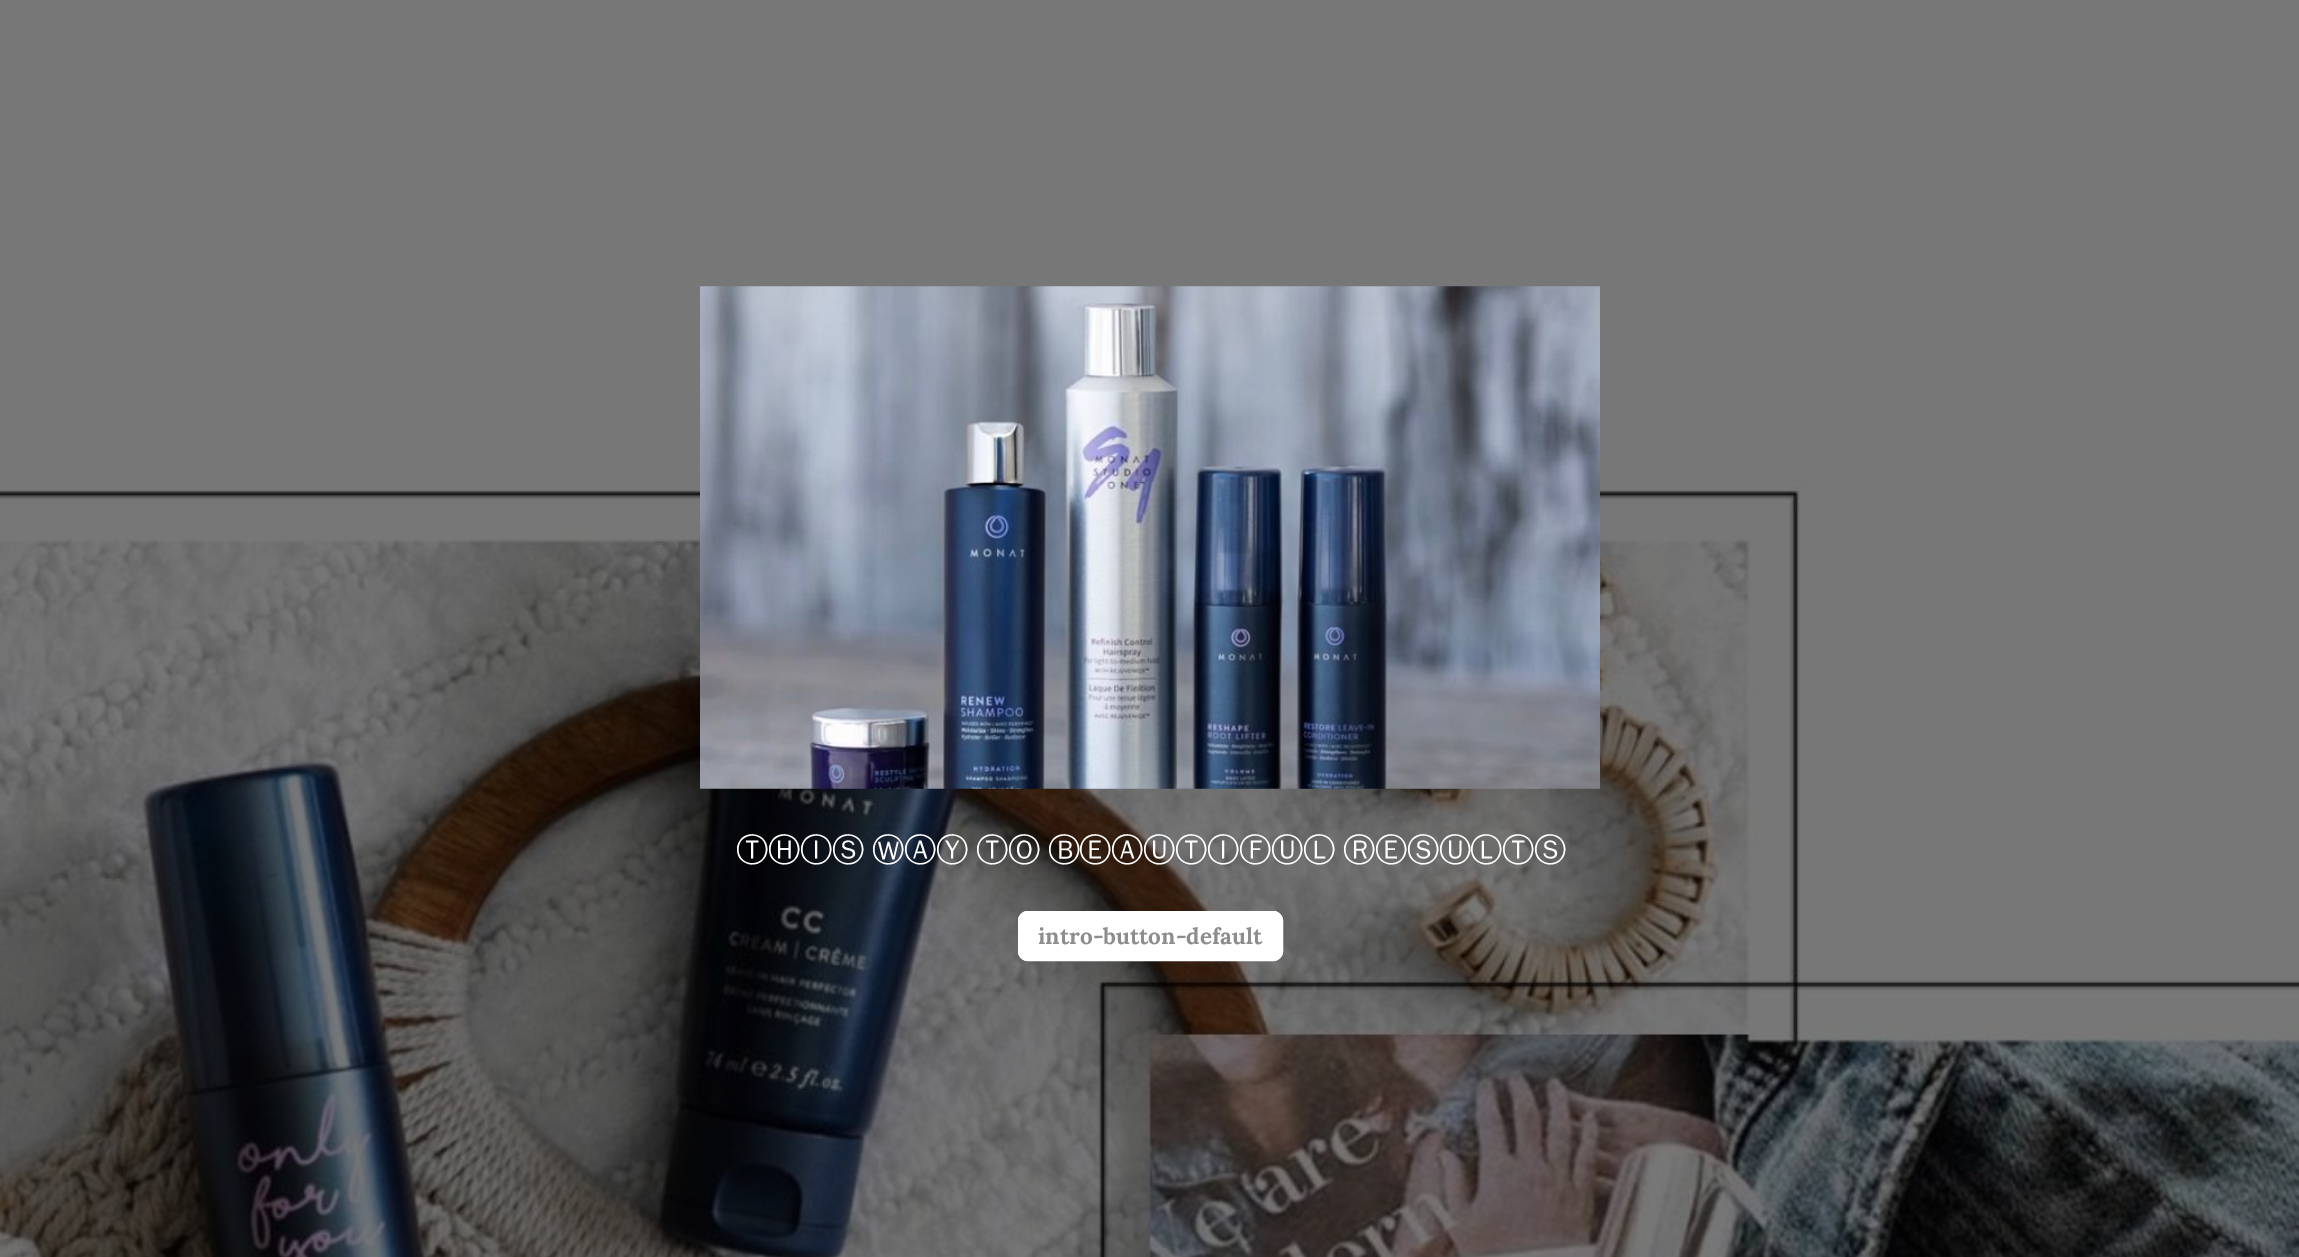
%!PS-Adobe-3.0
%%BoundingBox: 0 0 2299 1257
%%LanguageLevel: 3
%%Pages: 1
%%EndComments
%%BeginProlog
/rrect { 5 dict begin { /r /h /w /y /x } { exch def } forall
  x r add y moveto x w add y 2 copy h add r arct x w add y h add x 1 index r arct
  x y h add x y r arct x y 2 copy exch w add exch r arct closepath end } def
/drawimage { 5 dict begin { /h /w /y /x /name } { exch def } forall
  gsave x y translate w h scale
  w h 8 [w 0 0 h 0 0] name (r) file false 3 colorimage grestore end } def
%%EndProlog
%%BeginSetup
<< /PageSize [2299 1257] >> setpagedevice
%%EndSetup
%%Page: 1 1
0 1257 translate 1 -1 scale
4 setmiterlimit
1 setgray
0 0 2299 1257 rectfill
(images/1.raw) 0 0 2299 1257 drawimage
(images/2.raw) 700 286 900 503 drawimage
1018.5 911.5 264 49 9.5 rrect stroke
1018 911 265 50 10 rrect fill
/WenQuanYiZenHei-Medium [32.5 0 0 -32.5 0 0] selectfont
736 861 moveto -1 0 32 -0.6 0 (ⓉⒽⒾⓈ ⓌⒶⓎ ⓉⓄ ⒷⒺⒶⓊⓉⒾⒻⓊⓁ ⓇⒺⓈⓊⓁⓉⓈ) awidthshow
/Lora-Bold [22.5 0 0 -22.5 0 0] selectfont
0.553 setgray
1038 944 moveto (intro-button-default) show
showpage
%%EOF
